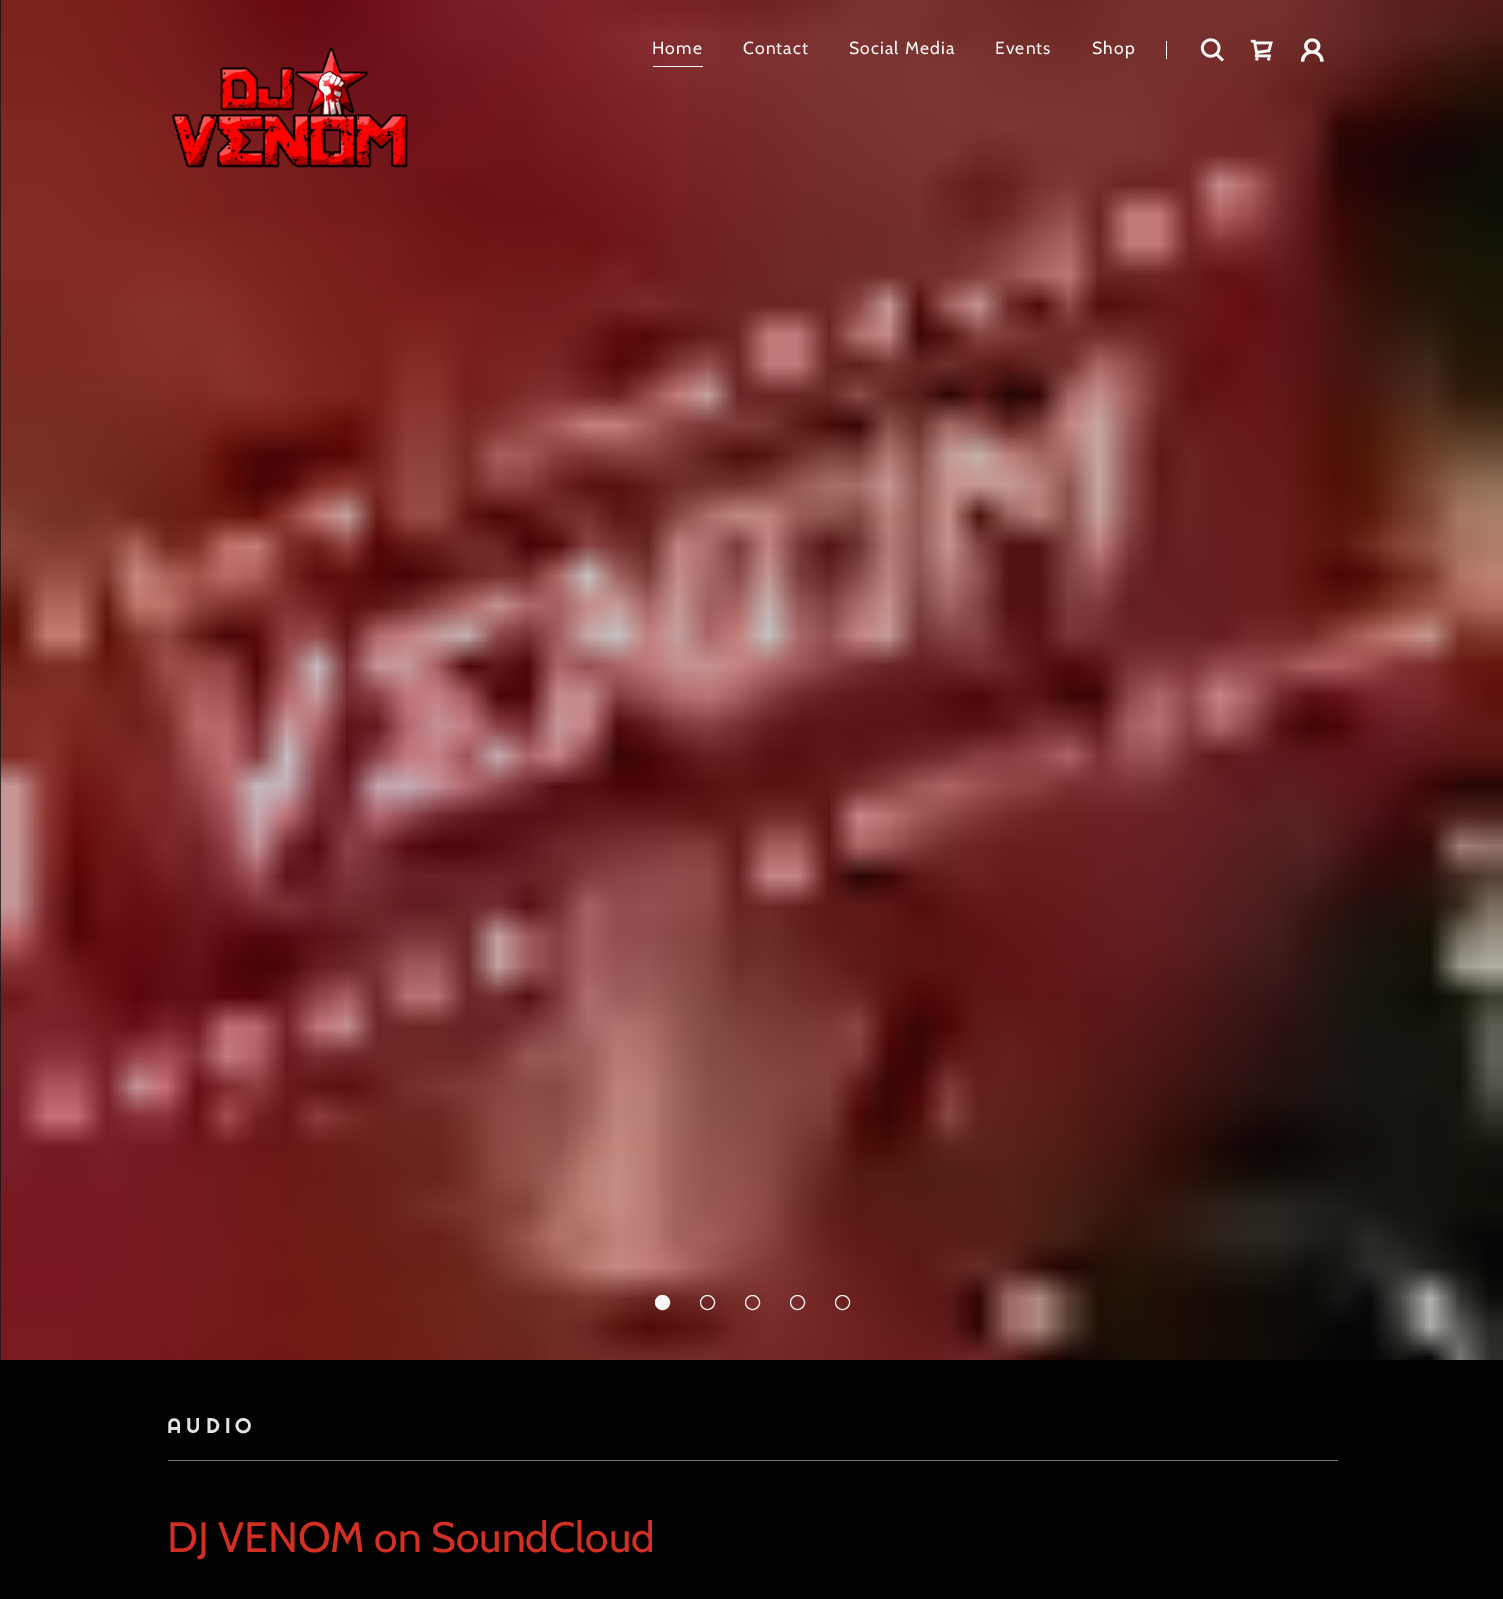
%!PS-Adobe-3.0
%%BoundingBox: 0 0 1503 1599
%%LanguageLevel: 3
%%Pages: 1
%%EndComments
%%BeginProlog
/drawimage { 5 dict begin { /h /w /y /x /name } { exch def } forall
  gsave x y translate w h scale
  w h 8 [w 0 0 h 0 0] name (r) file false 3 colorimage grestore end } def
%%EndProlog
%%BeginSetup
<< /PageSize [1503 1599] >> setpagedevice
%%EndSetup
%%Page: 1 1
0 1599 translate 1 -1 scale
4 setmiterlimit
0 setgray
0 0 1503 1599 rectfill
0.086 setgray
0 0 1 1360 rectfill
(images/1.raw) 0 0 1503 1360 drawimage
0.969 setgray
newpath 662.5 1302.5 7 0 360 arc closepath gsave fill grestore
stroke
newpath 707.5 1302.5 7 0 360 arc closepath stroke
newpath 752.5 1302.5 7 0 360 arc closepath stroke
newpath 797.5 1302.5 7 0 360 arc closepath stroke
newpath 842.5 1302.5 7 0 360 arc closepath stroke
(images/2.raw) 172 47 236 121 drawimage
653 66 50 1 rectfill
1166 41 1 18 rectfill
(images/3.raw) 1200 38 24 24 drawimage
(images/4.raw) 1250 39 23 22 drawimage
(images/5.raw) 1300 38 24 24 drawimage
0.467 setgray
168 1460 1170 1 rectfill
/Cabin-Regular [17.5 0 0 -17.5 0 0] selectfont
0.969 setgray
652 54 moveto 1.1 0 (Home) ashow
743 54 moveto 1.1 0 (Contact) ashow
849 54 moveto 1.1 0 (Social Media) ashow
995 54 moveto 1.1 0 (Events) ashow
1092 54 moveto 1.1 0 (Shop) ashow
/Righteous-Regular [21.25 0 0 -21.25 0 0] selectfont
0.886 setgray
167 1433 moveto 5 0 (AUDIO) ashow
/Cabin-Regular [42.5 0 0 -42.5 0 0] selectfont
0.824 0.184 0.145 setrgbcolor
167 1552 moveto (DJ VENOM on SoundCloud) show
showpage
%%EOF
